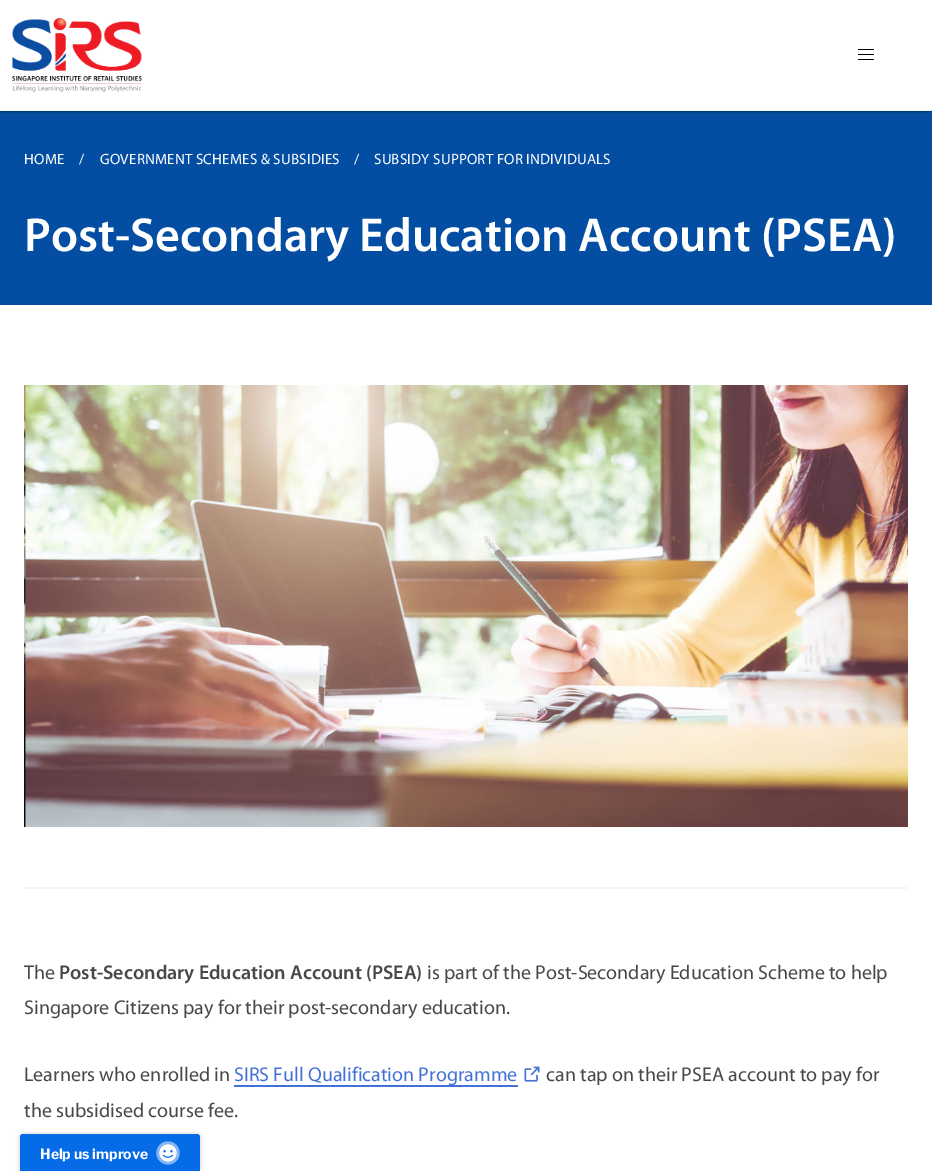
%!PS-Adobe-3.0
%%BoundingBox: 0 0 932 1171
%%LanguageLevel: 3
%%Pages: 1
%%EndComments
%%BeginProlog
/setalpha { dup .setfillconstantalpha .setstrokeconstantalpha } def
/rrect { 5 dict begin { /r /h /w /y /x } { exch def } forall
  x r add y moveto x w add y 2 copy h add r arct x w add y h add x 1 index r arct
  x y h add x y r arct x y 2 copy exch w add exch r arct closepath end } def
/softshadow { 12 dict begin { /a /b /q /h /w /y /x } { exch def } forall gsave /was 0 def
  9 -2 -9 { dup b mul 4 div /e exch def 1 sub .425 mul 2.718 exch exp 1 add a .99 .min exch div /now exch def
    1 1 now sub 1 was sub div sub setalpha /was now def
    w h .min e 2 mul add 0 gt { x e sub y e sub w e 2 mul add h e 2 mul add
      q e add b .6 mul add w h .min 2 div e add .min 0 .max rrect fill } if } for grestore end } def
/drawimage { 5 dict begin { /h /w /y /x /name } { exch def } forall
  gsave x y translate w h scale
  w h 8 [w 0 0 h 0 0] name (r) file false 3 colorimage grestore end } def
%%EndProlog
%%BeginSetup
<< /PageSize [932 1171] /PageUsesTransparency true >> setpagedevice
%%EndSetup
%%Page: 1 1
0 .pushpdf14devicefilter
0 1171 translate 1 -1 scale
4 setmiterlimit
1 setgray
0 0 932 1171 rectfill
0.012 0.306 0.635 setrgbcolor
0 111 932 194 rectfill
gsave
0 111 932 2 rectclip
0 setgray
0 1 932 111 0 1 0.24 softshadow
0 1 932 111 0 1.5 0.12 softshadow
grestore
0.941 setgray
0 110 932 1 rectfill
(images/1.raw) 12 18 130 74 drawimage
0 setgray
858 49 16 1 rectfill
858 54 16 1 rectfill
858 59 16 1 rectfill
(images/2.raw) 24 385 884 442 drawimage
0.961 setgray
24 887 884 2 rectfill
0.263 0.447 0.839 setrgbcolor
234 1085 284 2 rectfill
(images/3.raw) 524 1066 16 16 drawimage
0 setgray
20 1134 180 37 3 2.5 0.2 softshadow
0.02 0.42 0.906 setrgbcolor
newpath 23 1134 moveto 197 1134 lineto 198.5 1134 200 1135.5 200 1137 curveto 200 1171 lineto 20 1171 lineto 20 1137 lineto 20 1135.5 21.5 1134 23 1134 curveto closepath fill
(images/4.raw) 156 1141 24 24 drawimage
/Myriad-Regular [15 0 0 -15 0 0] selectfont
1 setgray
24 164 moveto 0.2 0 (HOME) ashow
79 164 moveto (/) show
100 164 moveto 0.2 0 (GOVERNMENT SCHEMES & SUBSIDIES) ashow
354 164 moveto (/) show
374 164 moveto 0.2 0 (SUBSIDY SUPPORT FOR INDIVIDUALS) ashow
/Myriad-SemiBold [48 0 0 -48 0 0] selectfont
24 251 moveto (Post-Secondary Education Account \(PSEA\)) show
/Myriad-Regular [20 0 0 -20 0 0] selectfont
0.282 setgray
24 979 moveto (The) show
/Myriad-SemiBold [20 0 0 -20 0 0] selectfont
59 979 moveto (Post-Secondary Education Account \(PSEA\)) show
/Myriad-Regular [20 0 0 -20 0 0] selectfont
427 979 moveto (is part of the Post-Secondary Education Scheme to help) show
24 1014 moveto (Singapore Citizens pay for their post-secondary education.) show
24 1081 moveto (Learners who enrolled in) show
0.263 0.447 0.839 setrgbcolor
234 1081 moveto (SIRS Full Qualification Programme) show
0.282 setgray
546 1081 moveto (can tap on their PSEA account to pay for) show
24 1117 moveto (the subsidised course fee.) show
/LibreFranklin-Bold [14 0 0 -14 0 0] selectfont
1 setgray
40 1159 moveto (Help us improve) show
.poppdf14devicefilter showpage
%%EOF
